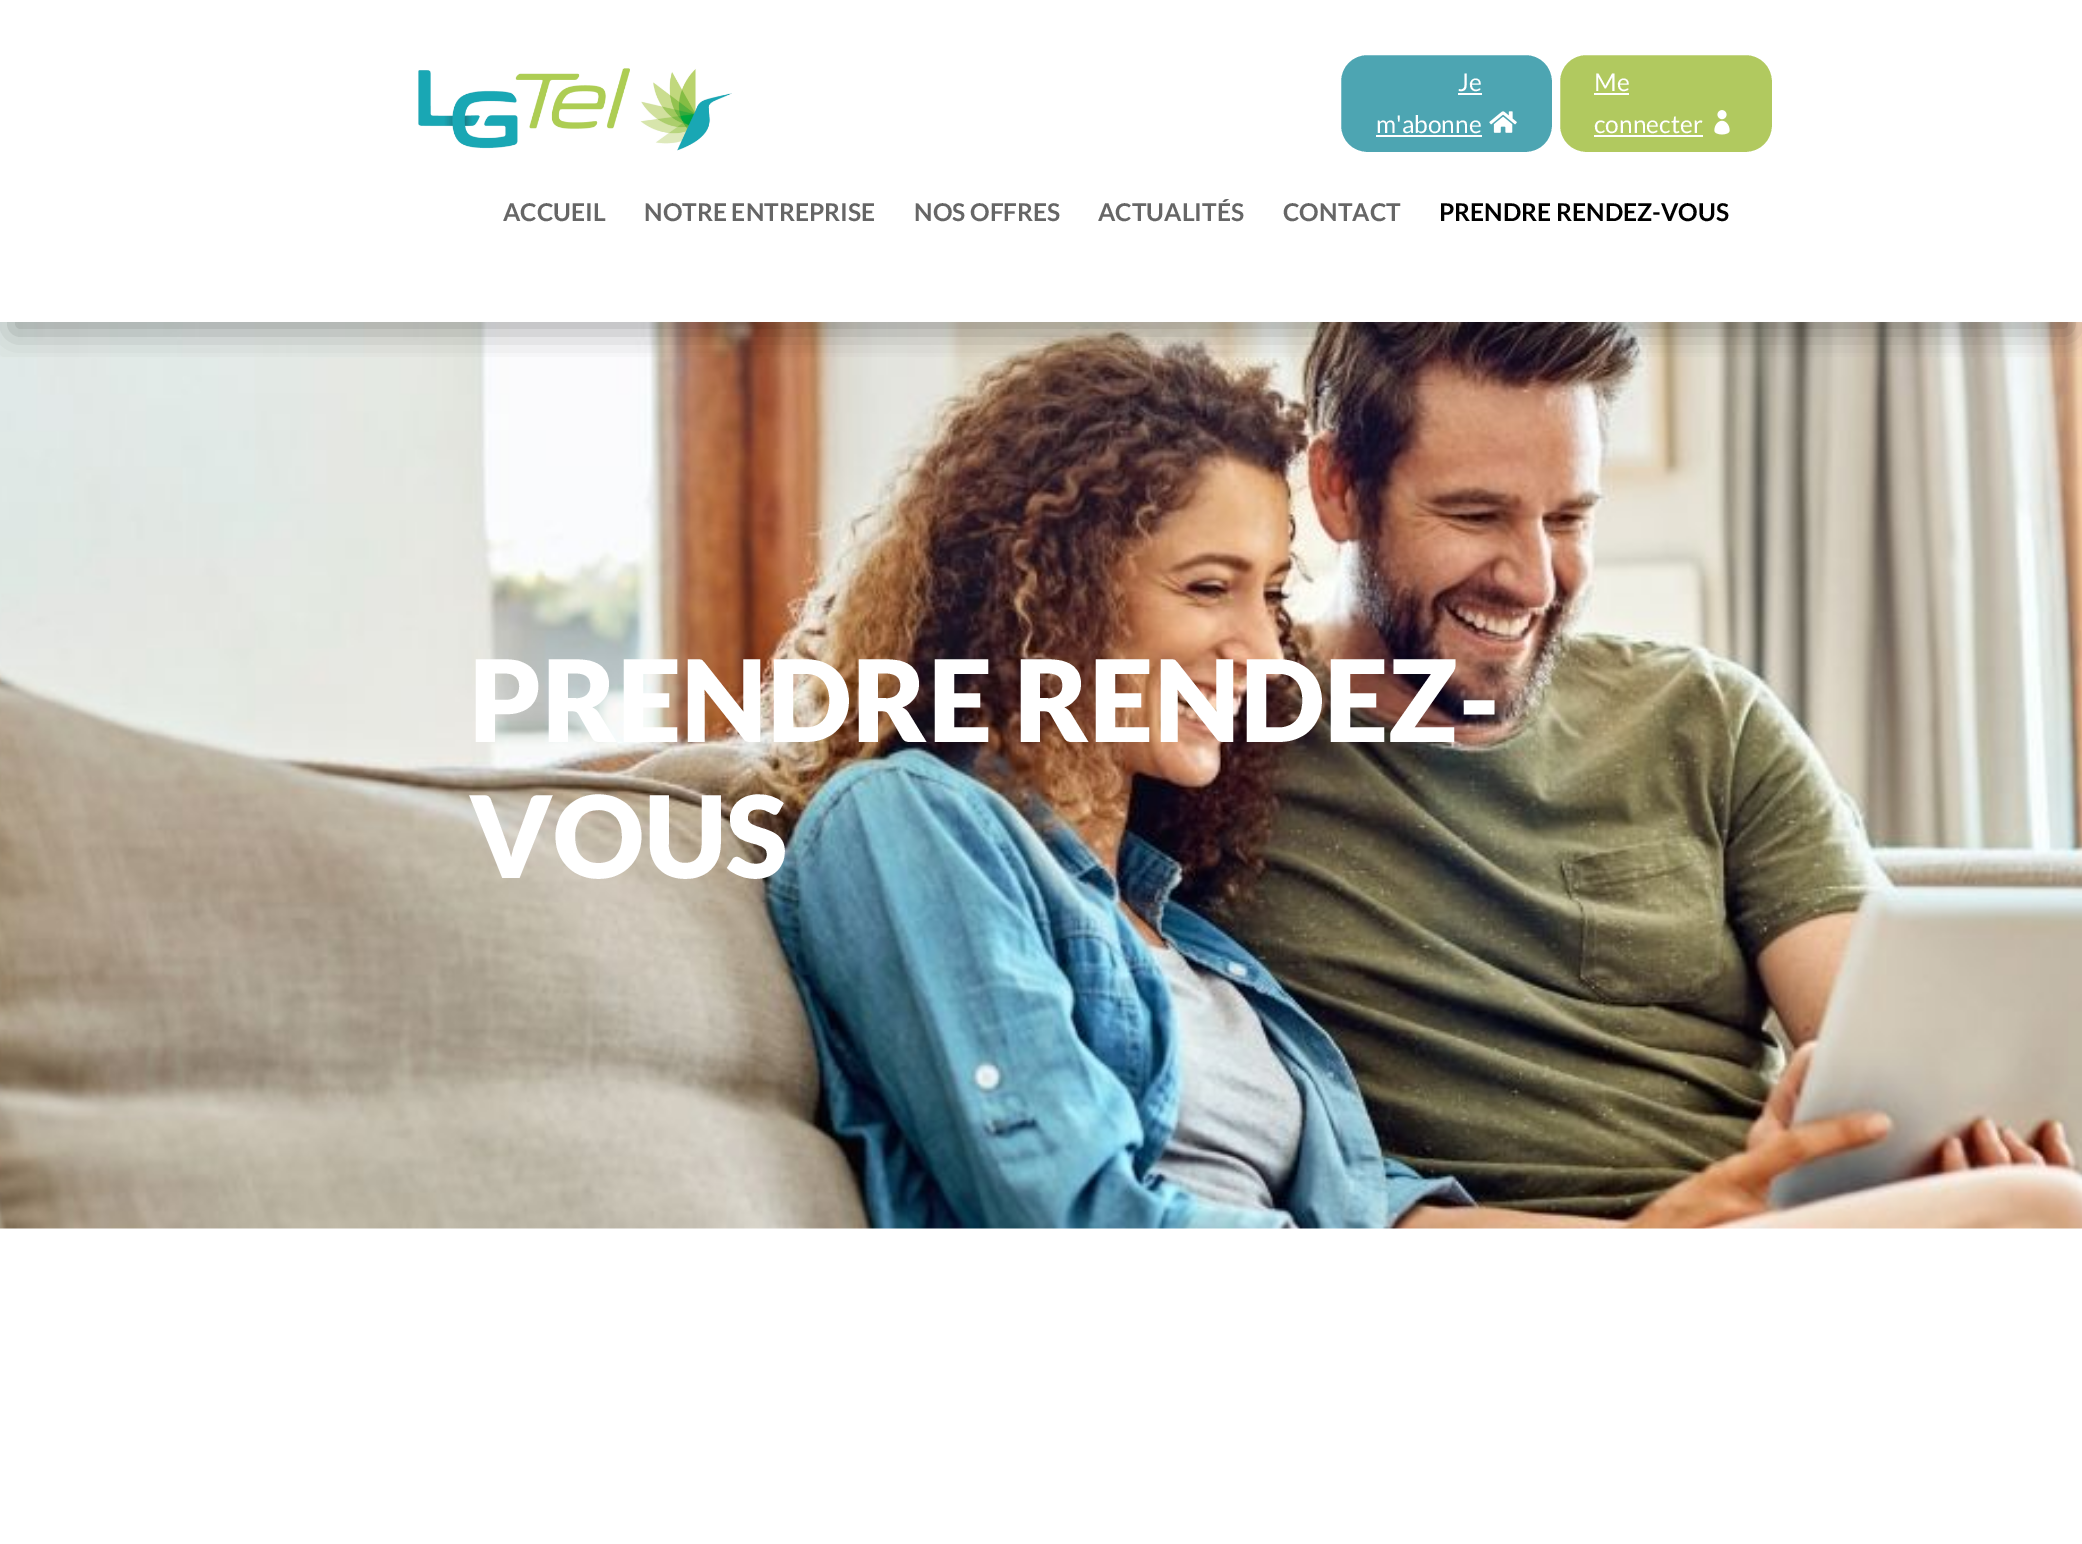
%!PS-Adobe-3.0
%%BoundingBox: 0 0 2082 1544
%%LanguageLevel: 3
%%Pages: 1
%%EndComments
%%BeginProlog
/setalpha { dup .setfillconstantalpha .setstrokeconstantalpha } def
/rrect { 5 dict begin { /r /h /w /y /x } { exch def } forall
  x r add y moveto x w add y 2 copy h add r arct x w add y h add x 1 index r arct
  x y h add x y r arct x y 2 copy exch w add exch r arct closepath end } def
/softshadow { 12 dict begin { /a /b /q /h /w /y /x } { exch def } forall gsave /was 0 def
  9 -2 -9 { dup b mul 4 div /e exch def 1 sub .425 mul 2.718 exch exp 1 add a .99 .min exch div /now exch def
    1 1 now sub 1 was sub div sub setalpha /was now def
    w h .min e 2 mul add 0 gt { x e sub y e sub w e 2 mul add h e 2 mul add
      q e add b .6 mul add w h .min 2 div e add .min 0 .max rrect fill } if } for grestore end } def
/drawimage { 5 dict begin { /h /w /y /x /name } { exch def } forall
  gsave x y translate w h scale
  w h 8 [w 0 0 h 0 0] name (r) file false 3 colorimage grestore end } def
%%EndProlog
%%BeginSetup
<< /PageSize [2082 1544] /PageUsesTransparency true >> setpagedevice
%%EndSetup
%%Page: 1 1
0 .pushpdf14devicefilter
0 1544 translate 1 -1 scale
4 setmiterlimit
1 setgray
0 0 2082 1544 rectfill
(images/4.raw) 0 322 2082 907 drawimage
gsave
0 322 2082 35 rectclip
0 setgray
11 32 2061 301 0 16 0.3 softshadow
grestore
(images/1.raw) 418 68 314 83 drawimage
0.302 0.647 0.698 setrgbcolor
1339 53 215 101 28 rrect gsave fill grestore
1 setgray
4 setlinewidth
stroke
1458 93 24 2 rectfill
1376 135 106 2 rectfill
(images/2.raw) 1489 111 28 22 drawimage
0.694 0.788 0.373 setrgbcolor
1558 53 216 101 28 rrect gsave fill grestore
1 setgray
stroke
1594 93 35 2 rectfill
1594 135 109 2 rectfill
(images/3.raw) 1714 110 16 25 drawimage
/Lato-Regular [24.5 0 0 -24.5 0 0] selectfont
1458 91 moveto (Je) show
1376 133 moveto (m'abonne) show
1594 91 moveto (Me) show
1594 133 moveto (connecter) show
/Lato-Bold [24.5 0 0 -24.5 0 0] selectfont
0.4 setgray
503 221 moveto (ACCUEIL) show
644 221 moveto (NOTRE ENTREPRISE) show
914 221 moveto (NOS OFFRES) show
1098 221 moveto (ACTUALITÉS) show
1283 221 moveto (CONTACT) show
0 setgray
1439 221 moveto (PRENDRE RENDEZ-VOUS) show
/Lato-Black [113.75 0 0 -113.75 0 0] selectfont
1 setgray
469 742 moveto (PRENDRE RENDEZ-) show
469 878 moveto (VOUS) show
.poppdf14devicefilter showpage
%%EOF
